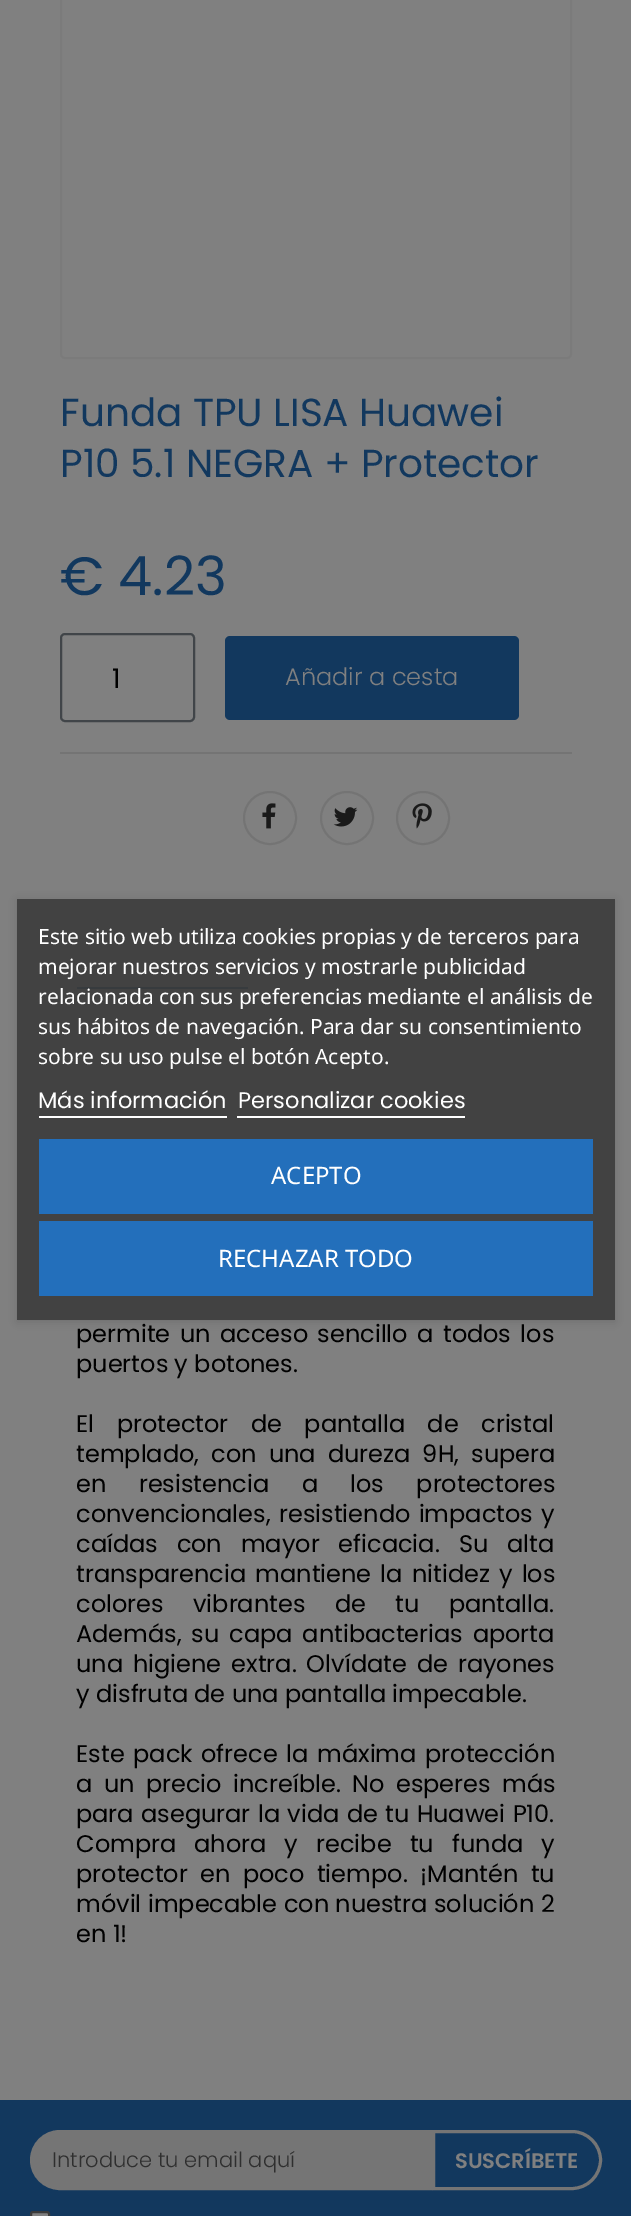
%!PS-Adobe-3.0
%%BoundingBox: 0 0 631 2216
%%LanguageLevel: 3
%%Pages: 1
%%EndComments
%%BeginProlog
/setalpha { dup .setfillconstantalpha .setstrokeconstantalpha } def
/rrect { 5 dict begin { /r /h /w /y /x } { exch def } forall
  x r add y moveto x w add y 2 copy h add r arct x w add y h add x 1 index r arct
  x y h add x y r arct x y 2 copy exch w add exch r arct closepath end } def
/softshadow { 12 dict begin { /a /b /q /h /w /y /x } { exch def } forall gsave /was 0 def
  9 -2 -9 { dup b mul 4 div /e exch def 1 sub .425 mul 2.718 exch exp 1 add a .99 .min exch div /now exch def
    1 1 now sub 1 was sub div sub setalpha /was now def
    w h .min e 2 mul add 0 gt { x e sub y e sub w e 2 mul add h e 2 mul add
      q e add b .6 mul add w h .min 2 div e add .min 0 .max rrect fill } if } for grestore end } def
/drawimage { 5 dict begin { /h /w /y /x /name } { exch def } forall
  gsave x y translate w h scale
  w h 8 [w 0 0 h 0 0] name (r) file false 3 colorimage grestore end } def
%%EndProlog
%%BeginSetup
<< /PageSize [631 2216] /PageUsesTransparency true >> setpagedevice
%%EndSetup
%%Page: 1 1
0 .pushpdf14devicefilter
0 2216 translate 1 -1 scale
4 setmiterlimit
0.502 setgray
0 0 631 2216 rectfill
0.482 setgray
2 setlinewidth
61 -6 510 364 4 rrect stroke
0.255 0.271 0.286 setrgbcolor
61 634 133 87 4 rrect stroke
0.071 0.22 0.369 setrgbcolor
225 636 294 84 5 rrect fill
0.455 setgray
60 752 512 2 rectfill
newpath 270 818 26 0 360 arc closepath stroke
(images/1.raw) 262 803 14 26 drawimage
newpath 347 818 26 0 360 arc closepath stroke
(images/2.raw) 333 807 25 20 drawimage
newpath 423 818 26 0 360 arc closepath stroke
(images/3.raw) 412 803 20 26 drawimage
0.071 0.22 0.369 setrgbcolor
77 987 171 2 rectfill
gsave
newpath 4 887 moveto 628 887 lineto 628 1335 lineto 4 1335 lineto closepath 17 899 moveto 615 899 lineto 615 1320 lineto 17 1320 lineto closepath eoclip newpath
0.439 setgray
17 900 598 422 0 4 1 softshadow
grestore
0.9 setalpha
0.231 setgray
17 899 598 421 rectfill
1 setalpha
1 setgray
39 1116 188 2 rectfill
237 1116 228 2 rectfill
0.137 0.435 0.733 setrgbcolor
39 1139 554 75 rectfill
39 1221 554 75 rectfill
0.071 0.22 0.369 setrgbcolor
0 2100 631 116 rectfill
0.459 setgray
newpath 60 2131 moveto 431 2131 lineto 431 2189 lineto 60 2189 lineto 44 2189 31 2176 31 2160 curveto 31 2144 44 2131 60 2131 curveto closepath gsave fill grestore
stroke
3 setlinewidth
newpath 433.5 2131.5 moveto 572 2131.5 lineto 587.5 2131.5 600.5 2144.5 600.5 2160 curveto 600.5 2175.5 587.5 2188.5 572 2188.5 curveto 433.5 2188.5 lineto closepath stroke
0.502 setgray
31 2212 18 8 2 rrect gsave fill grestore
0.231 setgray
2 setlinewidth
stroke
/Poppins-Regular [39 0 0 -39 0 0] selectfont
0.071 0.22 0.369 setrgbcolor
60 426 moveto (Funda TPU LISA Huawei) show
60 477 moveto (P10 5.1 NEGRA + Protector) show
/Poppins-Regular [54 0 0 -54 0 0] selectfont
60 595 moveto (€ 4.23) show
/Poppins-Regular [27 0 0 -27 0 0] selectfont
0 setgray
112 688 moveto (1) show
/Poppins-Light [24 0 0 -24 0 0] selectfont
0.502 setgray
285 685 moveto (Añadir a cesta) show
/Poppins-Regular [24 0 0 -24 0 0] selectfont
0 setgray
76 1342 moveto 3 0 32 (permite un acceso sencillo a todos los) widthshow
76 1372 moveto (puertos y botones.) show
76 1432 moveto 16 0 32 (El protector de pantalla de cristal) widthshow
76 1462 moveto 5.75 0 32 (templado, con una dureza 9H, supera) widthshow
76 1492 moveto 26 0 32 (en resistencia a los protectores) widthshow
76 1522 moveto 2 0 32 (convencionales, resistiendo impactos y) widthshow
76 1552 moveto 12.5 0 32 (caídas con mayor eficacia. Su alta) widthshow
76 1582 moveto 2.75 0 32 (transparencia mantiene la nitidez y los) widthshow
76 1612 moveto 23 0 32 (colores vibrantes de tu pantalla.) widthshow
76 1642 moveto 3.5 0 32 (Además, su capa antibacterias aporta) widthshow
76 1672 moveto 3.5 0 32 (una higiene extra. Olvídate de rayones) widthshow
76 1702 moveto (y disfruta de una pantalla impecable.) show
76 1762 moveto 2.25 0 32 (Este pack ofrece la máxima protección) widthshow
76 1792 moveto 5 0 32 (a un precio increíble. No esperes más) widthshow
76 1822 moveto 1 0 32 (para asegurar la vida de tu Huawei P10.) widthshow
76 1852 moveto 11.75 0 32 (Compra ahora y recibe tu funda y) widthshow
76 1882 moveto 6 0 32 (protector en poco tiempo. ¡Mantén tu) widthshow
76 1912 moveto (móvil impecable con nuestra solución 2) show
76 1942 moveto (en 1!) show
/NotoSans-Regular [21 0 0 -21 0 0] selectfont
1 setgray
38 944 moveto (Este sitio web utiliza cookies propias y de terceros para) show
38 974 moveto (mejorar nuestros servicios y mostrarle publicidad) show
38 1004 moveto (relacionada con sus preferencias mediante el análisis de) show
38 1034 moveto (sus hábitos de navegación. Para dar su consentimiento) show
38 1064 moveto (sobre su uso pulse el botón Acepto.) show
/Poppins-Regular [22.5 0 0 -22.5 0 0] selectfont
38 1108 moveto (Más información) show
238 1108 moveto (Personalizar cookies) show
/NotoSans-Regular [24 0 0 -24 0 0] selectfont
271 1184 moveto (ACEPTO) show
218 1267 moveto (RECHAZAR TODO) show
/Poppins-Light [21 0 0 -21 0 0] selectfont
0.184 setgray
52 2167 moveto (Introduce tu email aquí) show
/Poppins-SemiBold [21 0 0 -21 0 0] selectfont
0.502 setgray
455 2168 moveto (SUSCRÍBETE) show
.poppdf14devicefilter showpage
%%EOF
